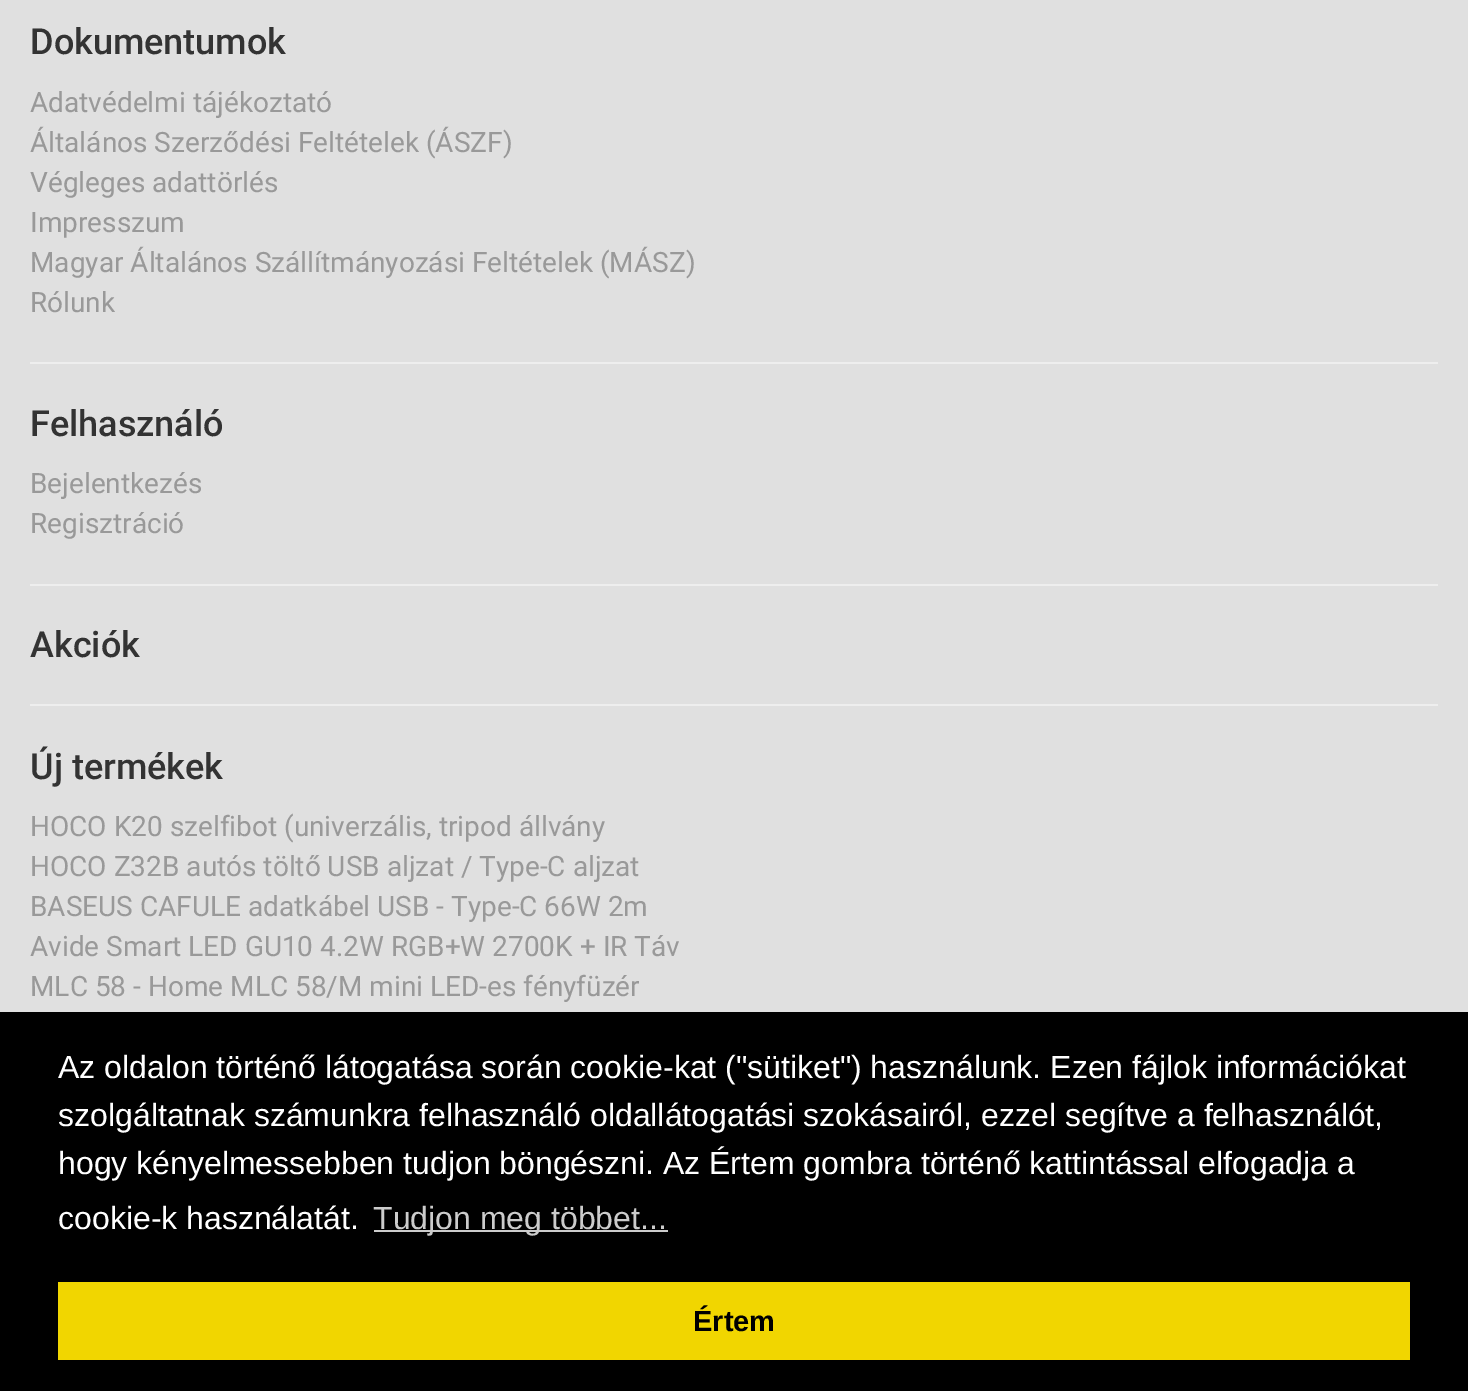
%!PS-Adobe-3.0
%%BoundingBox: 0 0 1468 1391
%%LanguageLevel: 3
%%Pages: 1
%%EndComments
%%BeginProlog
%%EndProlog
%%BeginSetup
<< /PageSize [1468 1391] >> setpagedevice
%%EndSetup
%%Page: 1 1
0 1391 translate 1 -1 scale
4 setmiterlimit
0.878 setgray
0 0 1468 1391 rectfill
0.933 setgray
30 362 1408 2 rectfill
30 584 1408 2 rectfill
30 704 1408 2 rectfill
0 setgray
0 1012 1468 379 rectfill
0.8 setgray
374 1230 294 2 rectfill
0.945 0.839 0 setrgbcolor
58 1282 1352 78 rectfill
/Roboto-Medium [36 0 0 -36 0 0] selectfont
0.2 setgray
30 54 moveto (Dokumentumok) show
/Roboto-Regular [28 0 0 -28 0 0] selectfont
0.6 setgray
30 112 moveto (Adatvédelmi tájékoztató) show
30 152 moveto (Általános Szerződési Feltételek \(ÁSZF\)) show
30 192 moveto (Végleges adattörlés) show
30 232 moveto (Impresszum) show
30 272 moveto (Magyar Általános Szállítmányozási Feltételek \(MÁSZ\)) show
30 312 moveto (Rólunk) show
/Roboto-Medium [36 0 0 -36 0 0] selectfont
0.2 setgray
30 436 moveto (Felhasználó) show
/Roboto-Regular [28 0 0 -28 0 0] selectfont
0.6 setgray
30 493 moveto (Bejelentkezés) show
30 533 moveto (Regisztráció) show
/Roboto-Medium [36 0 0 -36 0 0] selectfont
0.2 setgray
30 657 moveto (Akciók) show
30 779 moveto (Új termékek) show
/Roboto-Regular [28 0 0 -28 0 0] selectfont
0.6 setgray
30 836 moveto (HOCO K20 szelfibot \(univerzális, tripod állvány) show
30 876 moveto (HOCO Z32B autós töltő USB aljzat / Type-C aljzat) show
30 916 moveto (BASEUS CAFULE adatkábel USB - Type-C 66W 2m) show
30 956 moveto (Avide Smart LED GU10 4.2W RGB+W 2700K + IR Táv) show
30 996 moveto (MLC 58 - Home MLC 58/M mini LED-es fényfüzér) show
/LiberationSans-Regular [32 0 0 -32 0 0] selectfont
1 setgray
58 1078 moveto (Az oldalon történő látogatása során cookie-kat \("sütiket"\) használunk. Ezen fájlok információkat) show
58 1126 moveto (szolgáltatnak számunkra felhasználó oldallátogatási szokásairól, ezzel segítve a felhasználót,) show
58 1174 moveto (hogy kényelmessebben tudjon böngészni. Az Értem gombra történő kattintással elfogadja a) show
58 1229 moveto (cookie-k használatát.) show
0.8 setgray
373 1229 moveto (Tudjon meg többet...) show
/LiberationSans-Bold [29 0 0 -29 0 0] selectfont
0 setgray
693 1331 moveto (Értem) show
showpage
%%EOF
